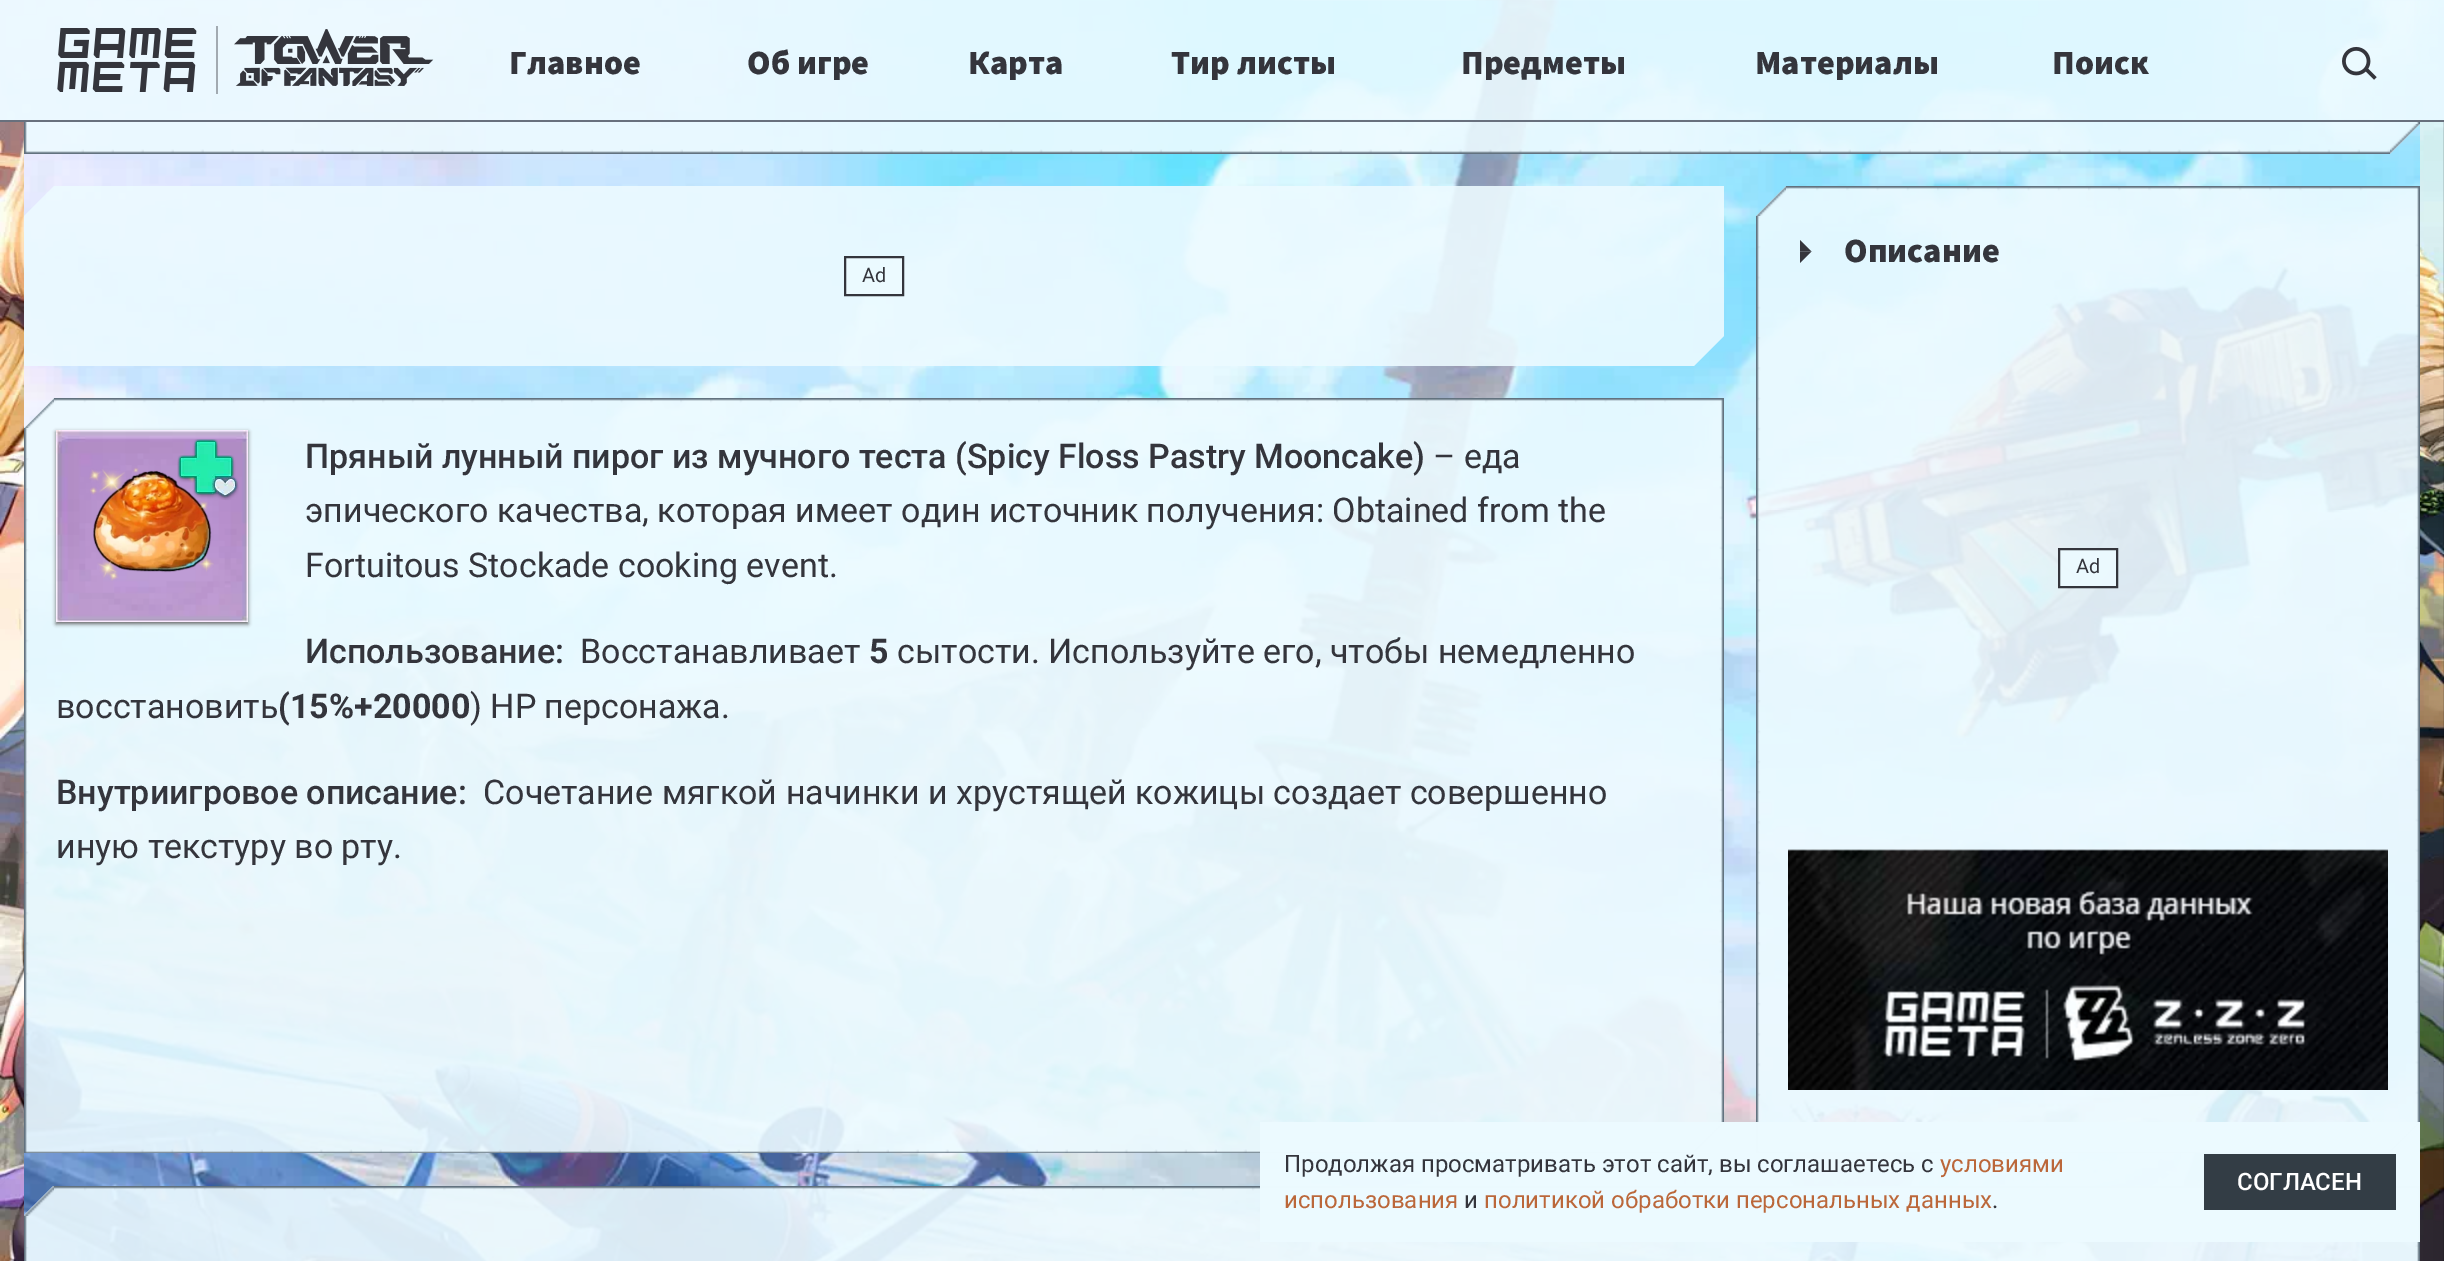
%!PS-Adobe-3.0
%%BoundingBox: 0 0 2444 1261
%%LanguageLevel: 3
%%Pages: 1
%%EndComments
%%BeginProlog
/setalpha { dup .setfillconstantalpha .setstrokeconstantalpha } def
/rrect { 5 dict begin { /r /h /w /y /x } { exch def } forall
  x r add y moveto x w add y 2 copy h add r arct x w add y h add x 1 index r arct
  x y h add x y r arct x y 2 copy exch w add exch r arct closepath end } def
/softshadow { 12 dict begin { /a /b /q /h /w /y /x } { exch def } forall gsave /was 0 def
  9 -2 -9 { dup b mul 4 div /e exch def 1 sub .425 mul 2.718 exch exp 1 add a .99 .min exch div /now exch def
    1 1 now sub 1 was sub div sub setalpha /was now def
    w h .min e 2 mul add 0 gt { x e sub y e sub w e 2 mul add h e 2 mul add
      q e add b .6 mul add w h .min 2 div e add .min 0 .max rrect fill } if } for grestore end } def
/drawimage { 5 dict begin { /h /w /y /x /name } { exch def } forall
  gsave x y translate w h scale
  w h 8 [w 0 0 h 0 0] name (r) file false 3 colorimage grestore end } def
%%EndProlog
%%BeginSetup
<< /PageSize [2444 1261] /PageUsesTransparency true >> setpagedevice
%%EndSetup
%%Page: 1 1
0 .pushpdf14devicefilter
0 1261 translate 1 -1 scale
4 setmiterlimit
1 setgray
0 0 2444 1261 rectfill
(images/5.raw) 0 122 2444 1139 drawimage
(images/7.raw) 24 122 2396 1139 drawimage
0.9 setalpha
0.925 0.98 1 setrgbcolor
newpath 54 -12 moveto 24 18 lineto 24 154 lineto 2390 154 lineto 2420 124 lineto 2420 -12 lineto closepath fill
1 setalpha
(images/1.raw) 0 0 2444 120 drawimage
0.408 0.439 0.49 setrgbcolor
0 120 2444 2 rectfill
(images/2.raw) 57 28 140 64 drawimage
0.635 0.667 0.694 setrgbcolor
216 26 2 68 rectfill
(images/3.raw) 234 29 200 57 drawimage
(images/4.raw) 2342 46 35 34 drawimage
(images/6.raw) 24 122 2396 32 drawimage
0.9 setalpha
0.925 0.98 1 setrgbcolor
newpath 54 186 moveto 24 216 lineto 24 366 lineto 1694 366 lineto 1724 336 lineto 1724 186 lineto closepath fill
newpath 845 257 moveto 903 257 lineto 903 295 lineto 845 295 lineto closepath fill
1 setalpha
0.204 0.208 0.235 setrgbcolor
2 setlinewidth
newpath 845 257 moveto 903 257 lineto 903 295 lineto 845 295 lineto closepath stroke
0.9 setalpha
0.925 0.98 1 setrgbcolor
newpath 54 398 moveto 1724 398 lineto 1724 1123 lineto 1694 1153 lineto 24 1153 lineto 24 428 lineto closepath fill
1 setalpha
(images/8.raw) 24 398 1700 755 drawimage
0.4 setgray
56 432 192 192 0 2 1 softshadow
(images/9.raw) 56 430 192 192 drawimage
(images/10.raw) 89 467 125 114 drawimage
(images/11.raw) 177 439 62 61 drawimage
0.9 setalpha
0.925 0.98 1 setrgbcolor
newpath 1786 186 moveto 1756 216 lineto 1756 1153 lineto 2390 1153 lineto 2420 1123 lineto 2420 186 lineto closepath fill
1 setalpha
(images/12.raw) 1756 186 664 967 drawimage
0.204 0.208 0.235 setrgbcolor
newpath 1800 240 moveto 1811.5 251.5 lineto 1800 251.5 lineto closepath fill
newpath 1811.5 251.5 moveto 1800 263 lineto 1800 251.5 lineto closepath fill
0.9 setalpha
0.925 0.98 1 setrgbcolor
newpath 2059 549 moveto 2117 549 lineto 2117 587 lineto 2059 587 lineto closepath fill
1 setalpha
0.204 0.208 0.235 setrgbcolor
newpath 2059 549 moveto 2117 549 lineto 2117 587 lineto 2059 587 lineto closepath stroke
(images/13.raw) 1788 849 600 241 drawimage
0.9 setalpha
0.925 0.98 1 setrgbcolor
newpath 24 1215 moveto 24 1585 lineto 2390 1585 lineto 2420 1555 lineto 2420 1186 lineto 53 1186 lineto closepath fill
1 setalpha
(images/14.raw) 24 1186 2396 75 drawimage
0.9 setalpha
1260 1122 1160 120 rectfill
1260 1122 1160 120 rectfill
1 setalpha
0.2 0.239 0.271 setrgbcolor
2204 1154 192 56 rectfill
/SourceSansPro-Black [34 0 0 -34 0 0] selectfont
0.204 0.208 0.235 setrgbcolor
509 74 moveto (Главное) show
747 74 moveto (Об игре) show
968 74 moveto (Карта) show
1171 74 moveto (Тир листы) show
1461 74 moveto (Предметы) show
1755 74 moveto (Материалы) show
2052 74 moveto (Поиск) show
/Roboto-Regular [20 0 0 -20 0 0] selectfont
862 282 moveto (Ad) show
/Roboto-Medium [34 0 0 -34 0 0] selectfont
305 468 moveto (Пряный лунный пирог из мучного теста \(Spicy Floss Pastry Mooncake\)) show
/Roboto-Regular [34 0 0 -34 0 0] selectfont
1433 468 moveto (– еда) show
305 522 moveto (эпического качества, которая имеет один источник получения: Obtained from the) show
305 577 moveto (Fortuitous Stockade cooking event.) show
/Roboto-Medium [34 0 0 -34 0 0] selectfont
305 663 moveto (Использование:) show
/Roboto-Regular [34 0 0 -34 0 0] selectfont
580 663 moveto (Восстанавливает) show
/Roboto-Bold [34 0 0 -34 0 0] selectfont
869 663 moveto (5) show
/Roboto-Regular [34 0 0 -34 0 0] selectfont
897 663 moveto (сытости. Используйте его, чтобы немедленно) show
56 718 moveto (восстановить) show
/Roboto-Bold [34 0 0 -34 0 0] selectfont
278 718 moveto (\(15%+20000) show
/Roboto-Regular [34 0 0 -34 0 0] selectfont
470 718 moveto (\) HP персонажа.) show
/Roboto-Medium [34 0 0 -34 0 0] selectfont
56 804 moveto (Внутриигровое описание:) show
/Roboto-Regular [34 0 0 -34 0 0] selectfont
483 804 moveto (Сочетание мягкой начинки и хрустящей кожицы создает совершенно) show
56 858 moveto (иную текстуру во рту.) show
/SourceSansPro-Black [34 0 0 -34 0 0] selectfont
1844 262 moveto (Описание) show
/Roboto-Regular [20 0 0 -20 0 0] selectfont
2076 573 moveto (Ad) show
/Roboto-Regular [24 0 0 -24 0 0] selectfont
1284 1172 moveto (Продолжая просматривать этот сайт, вы соглашаетесь с) show
0.733 0.404 0.227 setrgbcolor
1940 1172 moveto (условиями) show
1284 1208 moveto (использования) show
0.204 0.208 0.235 setrgbcolor
1464 1208 moveto (и) show
0.733 0.404 0.227 setrgbcolor
1484 1208 moveto (политикой обработки персональных данных) show
0.204 0.208 0.235 setrgbcolor
1992 1208 moveto (.) show
/Roboto-Medium [24 0 0 -24 0 0] selectfont
1 setgray
2237 1190 moveto (СОГЛАСЕН) show
.poppdf14devicefilter showpage
%%EOF
